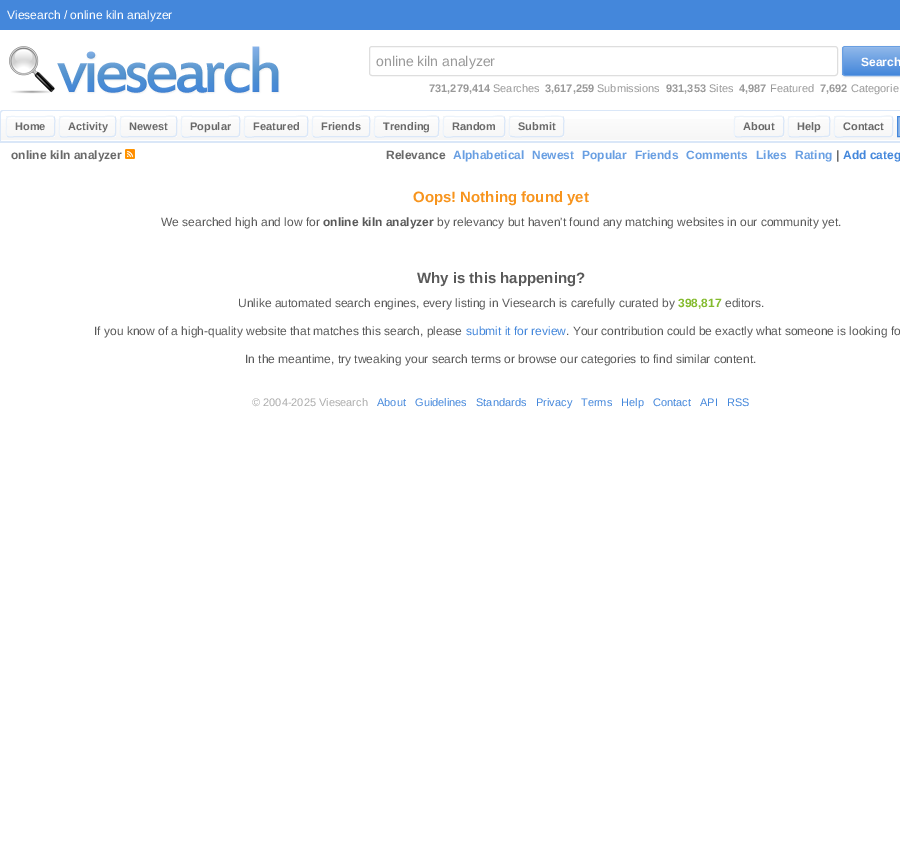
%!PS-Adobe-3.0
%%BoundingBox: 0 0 900 858
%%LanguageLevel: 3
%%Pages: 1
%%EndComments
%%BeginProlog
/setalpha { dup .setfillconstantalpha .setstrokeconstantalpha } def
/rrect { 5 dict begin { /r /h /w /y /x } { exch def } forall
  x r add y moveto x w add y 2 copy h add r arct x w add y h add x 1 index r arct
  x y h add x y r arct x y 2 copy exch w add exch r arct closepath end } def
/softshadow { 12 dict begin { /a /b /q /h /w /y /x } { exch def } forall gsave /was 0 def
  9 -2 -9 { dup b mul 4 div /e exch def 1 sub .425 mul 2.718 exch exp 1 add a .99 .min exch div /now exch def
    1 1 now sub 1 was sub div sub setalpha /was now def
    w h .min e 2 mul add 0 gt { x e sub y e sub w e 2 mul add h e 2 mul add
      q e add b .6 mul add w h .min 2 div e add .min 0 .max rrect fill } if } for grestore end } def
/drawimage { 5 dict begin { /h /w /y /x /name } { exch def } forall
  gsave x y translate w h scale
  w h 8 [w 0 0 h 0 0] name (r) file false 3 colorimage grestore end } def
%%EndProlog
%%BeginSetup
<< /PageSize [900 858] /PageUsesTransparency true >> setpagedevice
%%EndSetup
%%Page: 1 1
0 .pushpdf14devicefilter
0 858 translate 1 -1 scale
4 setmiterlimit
1 setgray
0 0 900 858 rectfill
0.267 0.529 0.859 setrgbcolor
0 0 900 30 rectfill
(images/1.raw) 9 46 271 48 drawimage
0.871 setgray
369.5 46.5 468 29 2.5 rrect stroke
0 setgray
842 47 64 30 3 1 0.1 softshadow
gsave
842 46 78 30 3 rrect clip newpath
gsave newpath 842 47 moveto 900 47 lineto 900 75 lineto 842 75 lineto closepath clip newpath
<< /ShadingType 2 /ColorSpace /DeviceRGB /Coords [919 47 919 75] /Extend [true true] /Function << /FunctionType 3 /Domain [0 1] /Functions [<< /FunctionType 2 /Domain [0 1] /C0 [0.925 0.953 0.984] /C1 [0.925 0.953 0.984] /N 1 >> << /FunctionType 2 /Domain [0 1] /C0 [0.925 0.953 0.984] /C1 [0.561 0.718 0.914] /N 1 >> << /FunctionType 2 /Domain [0 1] /C0 [0.561 0.718 0.914] /C1 [0.267 0.529 0.859] /N 1 >>] /Bounds [0.01 0.02] /Encode [0 1 0 1 0 1] >> >> shfill grestore
grestore
0.412 0.624 0.886 setrgbcolor
842.5 46.5 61 29 2.5 rrect stroke
0.855 0.906 0.973 setrgbcolor
0 141 900 1 rectfill
gsave newpath 0 119 moveto 900 119 lineto 900 141 lineto 0 141 lineto closepath clip newpath
<< /ShadingType 2 /ColorSpace /DeviceRGB /Coords [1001 111 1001 141] /Extend [true true] /Function << /FunctionType 3 /Domain [0 1] /Functions [<< /FunctionType 2 /Domain [0 1] /C0 [1 1 1] /C1 [1 1 1] /N 1 >> << /FunctionType 2 /Domain [0 1] /C0 [1 1 1] /C1 [1 1 1] /N 1 >> << /FunctionType 2 /Domain [0 1] /C0 [1 1 1] /C1 [0.961 0.961 0.961] /N 1 >> << /FunctionType 2 /Domain [0 1] /C0 [0.961 0.961 0.961] /C1 [1 1 1] /N 1 >>] /Bounds [0.01 0.02 0.98] /Encode [0 1 0 1 0 1 0 1] >> >> shfill grestore
newpath 3 110 moveto 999 110 lineto 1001 110 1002 111 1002 113 curveto 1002 141 lineto 0 141 lineto 0 113 lineto 0 111 1 110 3 110 curveto closepath 3 111 moveto 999 111 lineto 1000 111 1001 112 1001 113 curveto 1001 141 lineto 1 141 lineto 1 113 lineto 1 112 2 111 3 111 curveto closepath eofill
gsave
6 116 49 21 3 rrect clip newpath
gsave newpath 6 116 moveto 55 116 lineto 55 117 lineto 6 117 lineto closepath clip newpath
<< /ShadingType 2 /ColorSpace /DeviceRGB /Coords [54 98 54 117] /Extend [true true] /Function << /FunctionType 3 /Domain [0 1] /Functions [<< /FunctionType 2 /Domain [0 1] /C0 [1 1 1] /C1 [1 1 1] /N 1 >> << /FunctionType 2 /Domain [0 1] /C0 [1 1 1] /C1 [1 1 1] /N 1 >> << /FunctionType 2 /Domain [0 1] /C0 [1 1 1] /C1 [0.961 0.961 0.961] /N 1 >>] /Bounds [0.01 0.02] /Encode [0 1 0 1 0 1] >> >> shfill grestore
gsave newpath 6 136 moveto 55 136 lineto 55 137 lineto 6 137 lineto closepath clip newpath
<< /ShadingType 2 /ColorSpace /DeviceRGB /Coords [54 136 54 155] /Extend [true true] /Function << /FunctionType 3 /Domain [0 1] /Functions [<< /FunctionType 2 /Domain [0 1] /C0 [1 1 1] /C1 [1 1 1] /N 1 >> << /FunctionType 2 /Domain [0 1] /C0 [1 1 1] /C1 [1 1 1] /N 1 >> << /FunctionType 2 /Domain [0 1] /C0 [1 1 1] /C1 [0.961 0.961 0.961] /N 1 >>] /Bounds [0.01 0.02] /Encode [0 1 0 1 0 1] >> >> shfill grestore
grestore
newpath 54 117 moveto 55.5 119 54.5 124.5 54.5 126.5 curveto 54.5 137.5 56 136.5 45 136.5 curveto 16 136.5 lineto 13 136.5 9.5 138 7 136 curveto stroke
0.925 0.953 0.984 setrgbcolor
newpath 7 136 moveto 5.5 134 6.5 128.5 6.5 126.5 curveto 6.5 115.5 5 116.5 16 116.5 curveto 45 116.5 lineto 48 116.5 51.5 115 54 117 curveto stroke
gsave
59 116 57 21 3 rrect clip newpath
gsave newpath 59 116 moveto 116 116 lineto 116 117 lineto 59 117 lineto closepath clip newpath
<< /ShadingType 2 /ColorSpace /DeviceRGB /Coords [115 98 115 117] /Extend [true true] /Function << /FunctionType 3 /Domain [0 1] /Functions [<< /FunctionType 2 /Domain [0 1] /C0 [1 1 1] /C1 [1 1 1] /N 1 >> << /FunctionType 2 /Domain [0 1] /C0 [1 1 1] /C1 [1 1 1] /N 1 >> << /FunctionType 2 /Domain [0 1] /C0 [1 1 1] /C1 [0.961 0.961 0.961] /N 1 >>] /Bounds [0.01 0.02] /Encode [0 1 0 1 0 1] >> >> shfill grestore
gsave newpath 59 136 moveto 116 136 lineto 116 137 lineto 59 137 lineto closepath clip newpath
<< /ShadingType 2 /ColorSpace /DeviceRGB /Coords [115 136 115 155] /Extend [true true] /Function << /FunctionType 3 /Domain [0 1] /Functions [<< /FunctionType 2 /Domain [0 1] /C0 [1 1 1] /C1 [1 1 1] /N 1 >> << /FunctionType 2 /Domain [0 1] /C0 [1 1 1] /C1 [1 1 1] /N 1 >> << /FunctionType 2 /Domain [0 1] /C0 [1 1 1] /C1 [0.961 0.961 0.961] /N 1 >>] /Bounds [0.01 0.02] /Encode [0 1 0 1 0 1] >> >> shfill grestore
grestore
0.855 0.906 0.973 setrgbcolor
newpath 115 117 moveto 116.5 119 115.5 124.5 115.5 126.5 curveto 115.5 138 117 136.5 104.5 136.5 curveto 70.5 136.5 lineto 67 136.5 62.5 138 60 136 curveto stroke
0.925 0.953 0.984 setrgbcolor
newpath 60 136 moveto 58.5 134 59.5 128.5 59.5 126.5 curveto 59.5 115 58 116.5 70.5 116.5 curveto 104.5 116.5 lineto 108 116.5 112.5 115 115 117 curveto stroke
gsave
120 116 57 21 3 rrect clip newpath
gsave newpath 120 116 moveto 177 116 lineto 177 117 lineto 120 117 lineto closepath clip newpath
<< /ShadingType 2 /ColorSpace /DeviceRGB /Coords [176 98 176 117] /Extend [true true] /Function << /FunctionType 3 /Domain [0 1] /Functions [<< /FunctionType 2 /Domain [0 1] /C0 [1 1 1] /C1 [1 1 1] /N 1 >> << /FunctionType 2 /Domain [0 1] /C0 [1 1 1] /C1 [1 1 1] /N 1 >> << /FunctionType 2 /Domain [0 1] /C0 [1 1 1] /C1 [0.961 0.961 0.961] /N 1 >>] /Bounds [0.01 0.02] /Encode [0 1 0 1 0 1] >> >> shfill grestore
gsave newpath 120 136 moveto 177 136 lineto 177 137 lineto 120 137 lineto closepath clip newpath
<< /ShadingType 2 /ColorSpace /DeviceRGB /Coords [176 136 176 155] /Extend [true true] /Function << /FunctionType 3 /Domain [0 1] /Functions [<< /FunctionType 2 /Domain [0 1] /C0 [1 1 1] /C1 [1 1 1] /N 1 >> << /FunctionType 2 /Domain [0 1] /C0 [1 1 1] /C1 [1 1 1] /N 1 >> << /FunctionType 2 /Domain [0 1] /C0 [1 1 1] /C1 [0.961 0.961 0.961] /N 1 >>] /Bounds [0.01 0.02] /Encode [0 1 0 1 0 1] >> >> shfill grestore
grestore
0.855 0.906 0.973 setrgbcolor
newpath 176 117 moveto 177.5 119 176.5 124.5 176.5 126.5 curveto 176.5 138 178 136.5 165.5 136.5 curveto 131.5 136.5 lineto 128 136.5 123.5 138 121 136 curveto stroke
0.925 0.953 0.984 setrgbcolor
newpath 121 136 moveto 119.5 134 120.5 128.5 120.5 126.5 curveto 120.5 115 119 116.5 131.5 116.5 curveto 165.5 116.5 lineto 169 116.5 173.5 115 176 117 curveto stroke
gsave
181 116 59 21 3 rrect clip newpath
gsave newpath 181 116 moveto 240 116 lineto 240 117 lineto 181 117 lineto closepath clip newpath
<< /ShadingType 2 /ColorSpace /DeviceRGB /Coords [239 98 239 117] /Extend [true true] /Function << /FunctionType 3 /Domain [0 1] /Functions [<< /FunctionType 2 /Domain [0 1] /C0 [1 1 1] /C1 [1 1 1] /N 1 >> << /FunctionType 2 /Domain [0 1] /C0 [1 1 1] /C1 [1 1 1] /N 1 >> << /FunctionType 2 /Domain [0 1] /C0 [1 1 1] /C1 [0.961 0.961 0.961] /N 1 >>] /Bounds [0.01 0.02] /Encode [0 1 0 1 0 1] >> >> shfill grestore
gsave newpath 181 136 moveto 240 136 lineto 240 137 lineto 181 137 lineto closepath clip newpath
<< /ShadingType 2 /ColorSpace /DeviceRGB /Coords [239 136 239 155] /Extend [true true] /Function << /FunctionType 3 /Domain [0 1] /Functions [<< /FunctionType 2 /Domain [0 1] /C0 [1 1 1] /C1 [1 1 1] /N 1 >> << /FunctionType 2 /Domain [0 1] /C0 [1 1 1] /C1 [1 1 1] /N 1 >> << /FunctionType 2 /Domain [0 1] /C0 [1 1 1] /C1 [0.961 0.961 0.961] /N 1 >>] /Bounds [0.01 0.02] /Encode [0 1 0 1 0 1] >> >> shfill grestore
grestore
0.855 0.906 0.973 setrgbcolor
newpath 239 117 moveto 240.5 119 239.5 124.5 239.5 126.5 curveto 239.5 138.5 241 136.5 228 136.5 curveto 193 136.5 lineto 189 136.5 185 138.5 182 136 curveto stroke
0.925 0.953 0.984 setrgbcolor
newpath 182 136 moveto 180.5 134 181.5 128.5 181.5 126.5 curveto 181.5 114.5 180 116.5 193 116.5 curveto 228 116.5 lineto 232 116.5 236 114.5 239 117 curveto stroke
gsave
244 116 64 21 3 rrect clip newpath
gsave newpath 244 116 moveto 308 116 lineto 308 117 lineto 244 117 lineto closepath clip newpath
<< /ShadingType 2 /ColorSpace /DeviceRGB /Coords [307 98 307 117] /Extend [true true] /Function << /FunctionType 3 /Domain [0 1] /Functions [<< /FunctionType 2 /Domain [0 1] /C0 [1 1 1] /C1 [1 1 1] /N 1 >> << /FunctionType 2 /Domain [0 1] /C0 [1 1 1] /C1 [1 1 1] /N 1 >> << /FunctionType 2 /Domain [0 1] /C0 [1 1 1] /C1 [0.961 0.961 0.961] /N 1 >>] /Bounds [0.01 0.02] /Encode [0 1 0 1 0 1] >> >> shfill grestore
gsave newpath 244 136 moveto 308 136 lineto 308 137 lineto 244 137 lineto closepath clip newpath
<< /ShadingType 2 /ColorSpace /DeviceRGB /Coords [307 136 307 155] /Extend [true true] /Function << /FunctionType 3 /Domain [0 1] /Functions [<< /FunctionType 2 /Domain [0 1] /C0 [1 1 1] /C1 [1 1 1] /N 1 >> << /FunctionType 2 /Domain [0 1] /C0 [1 1 1] /C1 [1 1 1] /N 1 >> << /FunctionType 2 /Domain [0 1] /C0 [1 1 1] /C1 [0.961 0.961 0.961] /N 1 >>] /Bounds [0.01 0.02] /Encode [0 1 0 1 0 1] >> >> shfill grestore
grestore
0.855 0.906 0.973 setrgbcolor
newpath 307 117 moveto 308.5 119 307.5 124.5 307.5 126.5 curveto 307.5 138.5 309 136.5 295.5 136.5 curveto 256.5 136.5 lineto 253 136.5 248 138.5 245 136 curveto stroke
0.925 0.953 0.984 setrgbcolor
newpath 245 136 moveto 243.5 134 244.5 128.5 244.5 126.5 curveto 244.5 114.5 243 116.5 256.5 116.5 curveto 295.5 116.5 lineto 299 116.5 304 114.5 307 117 curveto stroke
gsave
312 116 58 21 3 rrect clip newpath
gsave newpath 312 116 moveto 370 116 lineto 370 117 lineto 312 117 lineto closepath clip newpath
<< /ShadingType 2 /ColorSpace /DeviceRGB /Coords [369 98 369 117] /Extend [true true] /Function << /FunctionType 3 /Domain [0 1] /Functions [<< /FunctionType 2 /Domain [0 1] /C0 [1 1 1] /C1 [1 1 1] /N 1 >> << /FunctionType 2 /Domain [0 1] /C0 [1 1 1] /C1 [1 1 1] /N 1 >> << /FunctionType 2 /Domain [0 1] /C0 [1 1 1] /C1 [0.961 0.961 0.961] /N 1 >>] /Bounds [0.01 0.02] /Encode [0 1 0 1 0 1] >> >> shfill grestore
gsave newpath 312 136 moveto 370 136 lineto 370 137 lineto 312 137 lineto closepath clip newpath
<< /ShadingType 2 /ColorSpace /DeviceRGB /Coords [369 136 369 155] /Extend [true true] /Function << /FunctionType 3 /Domain [0 1] /Functions [<< /FunctionType 2 /Domain [0 1] /C0 [1 1 1] /C1 [1 1 1] /N 1 >> << /FunctionType 2 /Domain [0 1] /C0 [1 1 1] /C1 [1 1 1] /N 1 >> << /FunctionType 2 /Domain [0 1] /C0 [1 1 1] /C1 [0.961 0.961 0.961] /N 1 >>] /Bounds [0.01 0.02] /Encode [0 1 0 1 0 1] >> >> shfill grestore
grestore
0.855 0.906 0.973 setrgbcolor
newpath 369 117 moveto 370.5 119 369.5 124.5 369.5 126.5 curveto 369.5 138.5 371 136.5 358.5 136.5 curveto 323.5 136.5 lineto 320 136.5 315.5 138.5 313 136 curveto stroke
0.925 0.953 0.984 setrgbcolor
newpath 313 136 moveto 311.5 134 312.5 128.5 312.5 126.5 curveto 312.5 114.5 311 116.5 323.5 116.5 curveto 358.5 116.5 lineto 362 116.5 366.5 114.5 369 117 curveto stroke
gsave
374 116 65 21 3 rrect clip newpath
gsave newpath 374 116 moveto 439 116 lineto 439 117 lineto 374 117 lineto closepath clip newpath
<< /ShadingType 2 /ColorSpace /DeviceRGB /Coords [438 98 438 117] /Extend [true true] /Function << /FunctionType 3 /Domain [0 1] /Functions [<< /FunctionType 2 /Domain [0 1] /C0 [1 1 1] /C1 [1 1 1] /N 1 >> << /FunctionType 2 /Domain [0 1] /C0 [1 1 1] /C1 [1 1 1] /N 1 >> << /FunctionType 2 /Domain [0 1] /C0 [1 1 1] /C1 [0.961 0.961 0.961] /N 1 >>] /Bounds [0.01 0.02] /Encode [0 1 0 1 0 1] >> >> shfill grestore
gsave newpath 374 136 moveto 439 136 lineto 439 137 lineto 374 137 lineto closepath clip newpath
<< /ShadingType 2 /ColorSpace /DeviceRGB /Coords [438 136 438 155] /Extend [true true] /Function << /FunctionType 3 /Domain [0 1] /Functions [<< /FunctionType 2 /Domain [0 1] /C0 [1 1 1] /C1 [1 1 1] /N 1 >> << /FunctionType 2 /Domain [0 1] /C0 [1 1 1] /C1 [1 1 1] /N 1 >> << /FunctionType 2 /Domain [0 1] /C0 [1 1 1] /C1 [0.961 0.961 0.961] /N 1 >>] /Bounds [0.01 0.02] /Encode [0 1 0 1 0 1] >> >> shfill grestore
grestore
0.855 0.906 0.973 setrgbcolor
newpath 438 117 moveto 439.5 119 438.5 124.5 438.5 126.5 curveto 438.5 138.5 439.5 136.5 426 136.5 curveto 387 136.5 lineto 383 136.5 378 138.5 375 136 curveto stroke
0.925 0.953 0.984 setrgbcolor
newpath 375 136 moveto 373.5 134 374.5 128.5 374.5 126.5 curveto 374.5 114.5 373.5 116.5 387 116.5 curveto 426 116.5 lineto 430 116.5 435 114.5 438 117 curveto stroke
gsave
443 116 62 21 3 rrect clip newpath
gsave newpath 443 116 moveto 505 116 lineto 505 117 lineto 443 117 lineto closepath clip newpath
<< /ShadingType 2 /ColorSpace /DeviceRGB /Coords [504 98 504 117] /Extend [true true] /Function << /FunctionType 3 /Domain [0 1] /Functions [<< /FunctionType 2 /Domain [0 1] /C0 [1 1 1] /C1 [1 1 1] /N 1 >> << /FunctionType 2 /Domain [0 1] /C0 [1 1 1] /C1 [1 1 1] /N 1 >> << /FunctionType 2 /Domain [0 1] /C0 [1 1 1] /C1 [0.961 0.961 0.961] /N 1 >>] /Bounds [0.01 0.02] /Encode [0 1 0 1 0 1] >> >> shfill grestore
gsave newpath 443 136 moveto 505 136 lineto 505 137 lineto 443 137 lineto closepath clip newpath
<< /ShadingType 2 /ColorSpace /DeviceRGB /Coords [504 136 504 155] /Extend [true true] /Function << /FunctionType 3 /Domain [0 1] /Functions [<< /FunctionType 2 /Domain [0 1] /C0 [1 1 1] /C1 [1 1 1] /N 1 >> << /FunctionType 2 /Domain [0 1] /C0 [1 1 1] /C1 [1 1 1] /N 1 >> << /FunctionType 2 /Domain [0 1] /C0 [1 1 1] /C1 [0.961 0.961 0.961] /N 1 >>] /Bounds [0.01 0.02] /Encode [0 1 0 1 0 1] >> >> shfill grestore
grestore
0.855 0.906 0.973 setrgbcolor
newpath 504 117 moveto 505.5 119 504.5 124.5 504.5 126.5 curveto 504.5 138.5 506 136.5 492.5 136.5 curveto 455.5 136.5 lineto 451.5 136.5 447 138.5 444 136 curveto stroke
0.925 0.953 0.984 setrgbcolor
newpath 444 136 moveto 442.5 134 443.5 128.5 443.5 126.5 curveto 443.5 114.5 442 116.5 455.5 116.5 curveto 492.5 116.5 lineto 496.5 116.5 501 114.5 504 117 curveto stroke
gsave
509 116 55 21 3 rrect clip newpath
gsave newpath 509 116 moveto 564 116 lineto 564 117 lineto 509 117 lineto closepath clip newpath
<< /ShadingType 2 /ColorSpace /DeviceRGB /Coords [563 98 563 117] /Extend [true true] /Function << /FunctionType 3 /Domain [0 1] /Functions [<< /FunctionType 2 /Domain [0 1] /C0 [1 1 1] /C1 [1 1 1] /N 1 >> << /FunctionType 2 /Domain [0 1] /C0 [1 1 1] /C1 [1 1 1] /N 1 >> << /FunctionType 2 /Domain [0 1] /C0 [1 1 1] /C1 [0.961 0.961 0.961] /N 1 >>] /Bounds [0.01 0.02] /Encode [0 1 0 1 0 1] >> >> shfill grestore
gsave newpath 509 136 moveto 564 136 lineto 564 137 lineto 509 137 lineto closepath clip newpath
<< /ShadingType 2 /ColorSpace /DeviceRGB /Coords [563 136 563 155] /Extend [true true] /Function << /FunctionType 3 /Domain [0 1] /Functions [<< /FunctionType 2 /Domain [0 1] /C0 [1 1 1] /C1 [1 1 1] /N 1 >> << /FunctionType 2 /Domain [0 1] /C0 [1 1 1] /C1 [1 1 1] /N 1 >> << /FunctionType 2 /Domain [0 1] /C0 [1 1 1] /C1 [0.961 0.961 0.961] /N 1 >>] /Bounds [0.01 0.02] /Encode [0 1 0 1 0 1] >> >> shfill grestore
grestore
0.855 0.906 0.973 setrgbcolor
newpath 563 117 moveto 564.5 119 563.5 124.5 563.5 126.5 curveto 563.5 138 565 136.5 553 136.5 curveto 528.5 136.5 lineto 525.5 136.5 512.5 137.5 510.5 136 curveto 510 136 lineto stroke
0.925 0.953 0.984 setrgbcolor
newpath 510 136 moveto 508.5 134 509.5 128.5 509.5 126.5 curveto 509.5 115 508 116.5 520 116.5 curveto 544.5 116.5 lineto 547.5 116.5 560.5 115.5 562.5 117 curveto 563 117 lineto stroke
gsave
734 116 50 21 3 rrect clip newpath
gsave newpath 734 116 moveto 784 116 lineto 784 117 lineto 734 117 lineto closepath clip newpath
<< /ShadingType 2 /ColorSpace /DeviceRGB /Coords [783 98 783 117] /Extend [true true] /Function << /FunctionType 3 /Domain [0 1] /Functions [<< /FunctionType 2 /Domain [0 1] /C0 [1 1 1] /C1 [1 1 1] /N 1 >> << /FunctionType 2 /Domain [0 1] /C0 [1 1 1] /C1 [1 1 1] /N 1 >> << /FunctionType 2 /Domain [0 1] /C0 [1 1 1] /C1 [0.961 0.961 0.961] /N 1 >>] /Bounds [0.01 0.02] /Encode [0 1 0 1 0 1] >> >> shfill grestore
gsave newpath 734 136 moveto 784 136 lineto 784 137 lineto 734 137 lineto closepath clip newpath
<< /ShadingType 2 /ColorSpace /DeviceRGB /Coords [783 136 783 155] /Extend [true true] /Function << /FunctionType 3 /Domain [0 1] /Functions [<< /FunctionType 2 /Domain [0 1] /C0 [1 1 1] /C1 [1 1 1] /N 1 >> << /FunctionType 2 /Domain [0 1] /C0 [1 1 1] /C1 [1 1 1] /N 1 >> << /FunctionType 2 /Domain [0 1] /C0 [1 1 1] /C1 [0.961 0.961 0.961] /N 1 >>] /Bounds [0.01 0.02] /Encode [0 1 0 1 0 1] >> >> shfill grestore
grestore
0.855 0.906 0.973 setrgbcolor
newpath 783 117 moveto 784.5 119 783.5 124.5 783.5 126.5 curveto 783.5 137.5 785 136.5 773.5 136.5 curveto 744.5 136.5 lineto 741 136.5 737.5 138 735 136 curveto stroke
0.925 0.953 0.984 setrgbcolor
newpath 735 136 moveto 733.5 134 734.5 128.5 734.5 126.5 curveto 734.5 115.5 733 116.5 744.5 116.5 curveto 773.5 116.5 lineto 777 116.5 780.5 115 783 117 curveto stroke
gsave
788 116 42 21 3 rrect clip newpath
gsave newpath 788 116 moveto 830 116 lineto 830 117 lineto 788 117 lineto closepath clip newpath
<< /ShadingType 2 /ColorSpace /DeviceRGB /Coords [829 98 829 117] /Extend [true true] /Function << /FunctionType 3 /Domain [0 1] /Functions [<< /FunctionType 2 /Domain [0 1] /C0 [1 1 1] /C1 [1 1 1] /N 1 >> << /FunctionType 2 /Domain [0 1] /C0 [1 1 1] /C1 [1 1 1] /N 1 >> << /FunctionType 2 /Domain [0 1] /C0 [1 1 1] /C1 [0.961 0.961 0.961] /N 1 >>] /Bounds [0.01 0.02] /Encode [0 1 0 1 0 1] >> >> shfill grestore
gsave newpath 788 136 moveto 830 136 lineto 830 137 lineto 788 137 lineto closepath clip newpath
<< /ShadingType 2 /ColorSpace /DeviceRGB /Coords [829 136 829 155] /Extend [true true] /Function << /FunctionType 3 /Domain [0 1] /Functions [<< /FunctionType 2 /Domain [0 1] /C0 [1 1 1] /C1 [1 1 1] /N 1 >> << /FunctionType 2 /Domain [0 1] /C0 [1 1 1] /C1 [1 1 1] /N 1 >> << /FunctionType 2 /Domain [0 1] /C0 [1 1 1] /C1 [0.961 0.961 0.961] /N 1 >>] /Bounds [0.01 0.02] /Encode [0 1 0 1 0 1] >> >> shfill grestore
grestore
0.855 0.906 0.973 setrgbcolor
newpath 829 117 moveto 830.5 119 829.5 124.5 829.5 126.5 curveto 829.5 137 831.5 136.5 821 136.5 curveto 803 136.5 lineto 800.5 136.5 791 138 789 136 curveto stroke
0.925 0.953 0.984 setrgbcolor
newpath 789 136 moveto 787.5 134 788.5 128.5 788.5 126.5 curveto 788.5 116 786.5 116.5 797 116.5 curveto 815 116.5 lineto 817.5 116.5 827 115 829 117 curveto stroke
gsave
834 116 59 21 3 rrect clip newpath
gsave newpath 834 116 moveto 893 116 lineto 893 117 lineto 834 117 lineto closepath clip newpath
<< /ShadingType 2 /ColorSpace /DeviceRGB /Coords [892 98 892 117] /Extend [true true] /Function << /FunctionType 3 /Domain [0 1] /Functions [<< /FunctionType 2 /Domain [0 1] /C0 [1 1 1] /C1 [1 1 1] /N 1 >> << /FunctionType 2 /Domain [0 1] /C0 [1 1 1] /C1 [1 1 1] /N 1 >> << /FunctionType 2 /Domain [0 1] /C0 [1 1 1] /C1 [0.961 0.961 0.961] /N 1 >>] /Bounds [0.01 0.02] /Encode [0 1 0 1 0 1] >> >> shfill grestore
gsave newpath 834 136 moveto 893 136 lineto 893 137 lineto 834 137 lineto closepath clip newpath
<< /ShadingType 2 /ColorSpace /DeviceRGB /Coords [892 136 892 155] /Extend [true true] /Function << /FunctionType 3 /Domain [0 1] /Functions [<< /FunctionType 2 /Domain [0 1] /C0 [1 1 1] /C1 [1 1 1] /N 1 >> << /FunctionType 2 /Domain [0 1] /C0 [1 1 1] /C1 [1 1 1] /N 1 >> << /FunctionType 2 /Domain [0 1] /C0 [1 1 1] /C1 [0.961 0.961 0.961] /N 1 >>] /Bounds [0.01 0.02] /Encode [0 1 0 1 0 1] >> >> shfill grestore
grestore
0.855 0.906 0.973 setrgbcolor
newpath 892 117 moveto 893.5 119 892.5 124.5 892.5 126.5 curveto 892.5 138.5 894 136.5 881 136.5 curveto 846 136.5 lineto 842 136.5 838 138.5 835 136 curveto stroke
0.925 0.953 0.984 setrgbcolor
newpath 835 136 moveto 833.5 134 834.5 128.5 834.5 126.5 curveto 834.5 114.5 833 116.5 846 116.5 curveto 881 116.5 lineto 885 116.5 889 114.5 892 117 curveto stroke
0.561 0.718 0.914 setrgbcolor
newpath 897.5 116.5 moveto 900.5 116.5 lineto 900.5 136.5 lineto 897.5 136.5 lineto closepath gsave fill grestore
0.267 0.529 0.859 setrgbcolor
stroke
0.855 0.906 0.973 setrgbcolor
1 142 899 1 rectfill
newpath 0.5 142.5 0.5 0 360 arc closepath fill
(images/2.raw) 125 149 10 10 drawimage
/LiberationSans-Regular [12 0 0 -12 0 0] selectfont
1 setgray
7 19 moveto (Viesearch / online kiln analyzer) show
/LiberationSans-Regular [14 0 0 -14 0 0] selectfont
0.6 setgray
376 66 moveto (online kiln analyzer) show
/LiberationSans-Bold [12 0 0 -12 0 0] selectfont
1 setgray
861 66 moveto (Search) show
/LiberationSans-Bold [11 0 0 -11 0 0] selectfont
0.6 setgray
429 92 moveto (731,279,414) show
/LiberationSans-Regular [11 0 0 -11 0 0] selectfont
493 92 moveto (Searches) show
/LiberationSans-Bold [11 0 0 -11 0 0] selectfont
545 92 moveto (3,617,259) show
/LiberationSans-Regular [11 0 0 -11 0 0] selectfont
597 92 moveto (Submissions) show
/LiberationSans-Bold [11 0 0 -11 0 0] selectfont
666 92 moveto (931,353) show
/LiberationSans-Regular [11 0 0 -11 0 0] selectfont
709 92 moveto (Sites) show
/LiberationSans-Bold [11 0 0 -11 0 0] selectfont
739 92 moveto (4,987) show
/LiberationSans-Regular [11 0 0 -11 0 0] selectfont
770 92 moveto (Featured) show
/LiberationSans-Bold [11 0 0 -11 0 0] selectfont
820 92 moveto (7,692) show
/LiberationSans-Regular [11 0 0 -11 0 0] selectfont
851 92 moveto (Categorie) show
/LiberationSans-Bold [11 0 0 -11 0 0] selectfont
0.412 setgray
15 130 moveto (Home) show
68 130 moveto (Activity) show
129 130 moveto (Newest) show
190 130 moveto (Popular) show
253 130 moveto (Featured) show
321 130 moveto (Friends) show
383 130 moveto (Trending) show
452 130 moveto (Random) show
518 130 moveto (Submit) show
743 130 moveto (About) show
797 130 moveto (Help) show
843 130 moveto (Contact) show
/LiberationSans-Bold [12 0 0 -12 0 0] selectfont
11 159 moveto (online kiln analyzer) show
386 159 moveto (Relevance) show
0.412 0.624 0.886 setrgbcolor
453 159 moveto (Alphabetical) show
532 159 moveto (Newest) show
582 159 moveto (Popular) show
635 159 moveto (Friends) show
686 159 moveto (Comments) show
756 159 moveto (Likes) show
795 159 moveto (Rating) show
0.412 setgray
836 159 moveto (|) show
0.267 0.529 0.859 setrgbcolor
843 159 moveto (Add categ) show
/LiberationSans-Bold [15 0 0 -15 0 0] selectfont
0.969 0.58 0.114 setrgbcolor
413 202 moveto (Oops! Nothing found yet) show
/LiberationSans-Regular [12 0 0 -12 0 0] selectfont
0.349 setgray
161 226 moveto (We searched high and low for) show
/LiberationSans-Bold [12 0 0 -12 0 0] selectfont
323 226 moveto (online kiln analyzer) show
/LiberationSans-Regular [12 0 0 -12 0 0] selectfont
437 226 moveto (by relevancy but haven't found any matching websites in our community yet.) show
/LiberationSans-Bold [15 0 0 -15 0 0] selectfont
417 283 moveto (Why is this happening?) show
/LiberationSans-Regular [12 0 0 -12 0 0] selectfont
238 307 moveto (Unlike automated search engines, every listing in Viesearch is carefully curated by) show
/LiberationSans-Bold [12 0 0 -12 0 0] selectfont
0.518 0.733 0.18 setrgbcolor
678 307 moveto (398,817) show
/LiberationSans-Regular [12 0 0 -12 0 0] selectfont
0.349 setgray
725 307 moveto (editors.) show
94 335 moveto (If you know of a high-quality website that matches this search, please) show
0.267 0.529 0.859 setrgbcolor
466 335 moveto (submit it for review) show
0.349 setgray
566 335 moveto (. Your contribution could be exactly what someone is looking fo) show
245 363 moveto (In the meantime, try tweaking your search terms or browse our categories to find similar content.) show
/LiberationSans-Regular [11 0 0 -11 0 0] selectfont
0.675 setgray
252 406 moveto (© 2004-2025 Viesearch) show
0.267 0.529 0.859 setrgbcolor
377 406 moveto (About) show
415 406 moveto (Guidelines) show
476 406 moveto (Standards) show
536 406 moveto (Privacy) show
581 406 moveto (Terms) show
621 406 moveto (Help) show
653 406 moveto (Contact) show
700 406 moveto (API) show
727 406 moveto (RSS) show
.poppdf14devicefilter showpage
%%EOF
